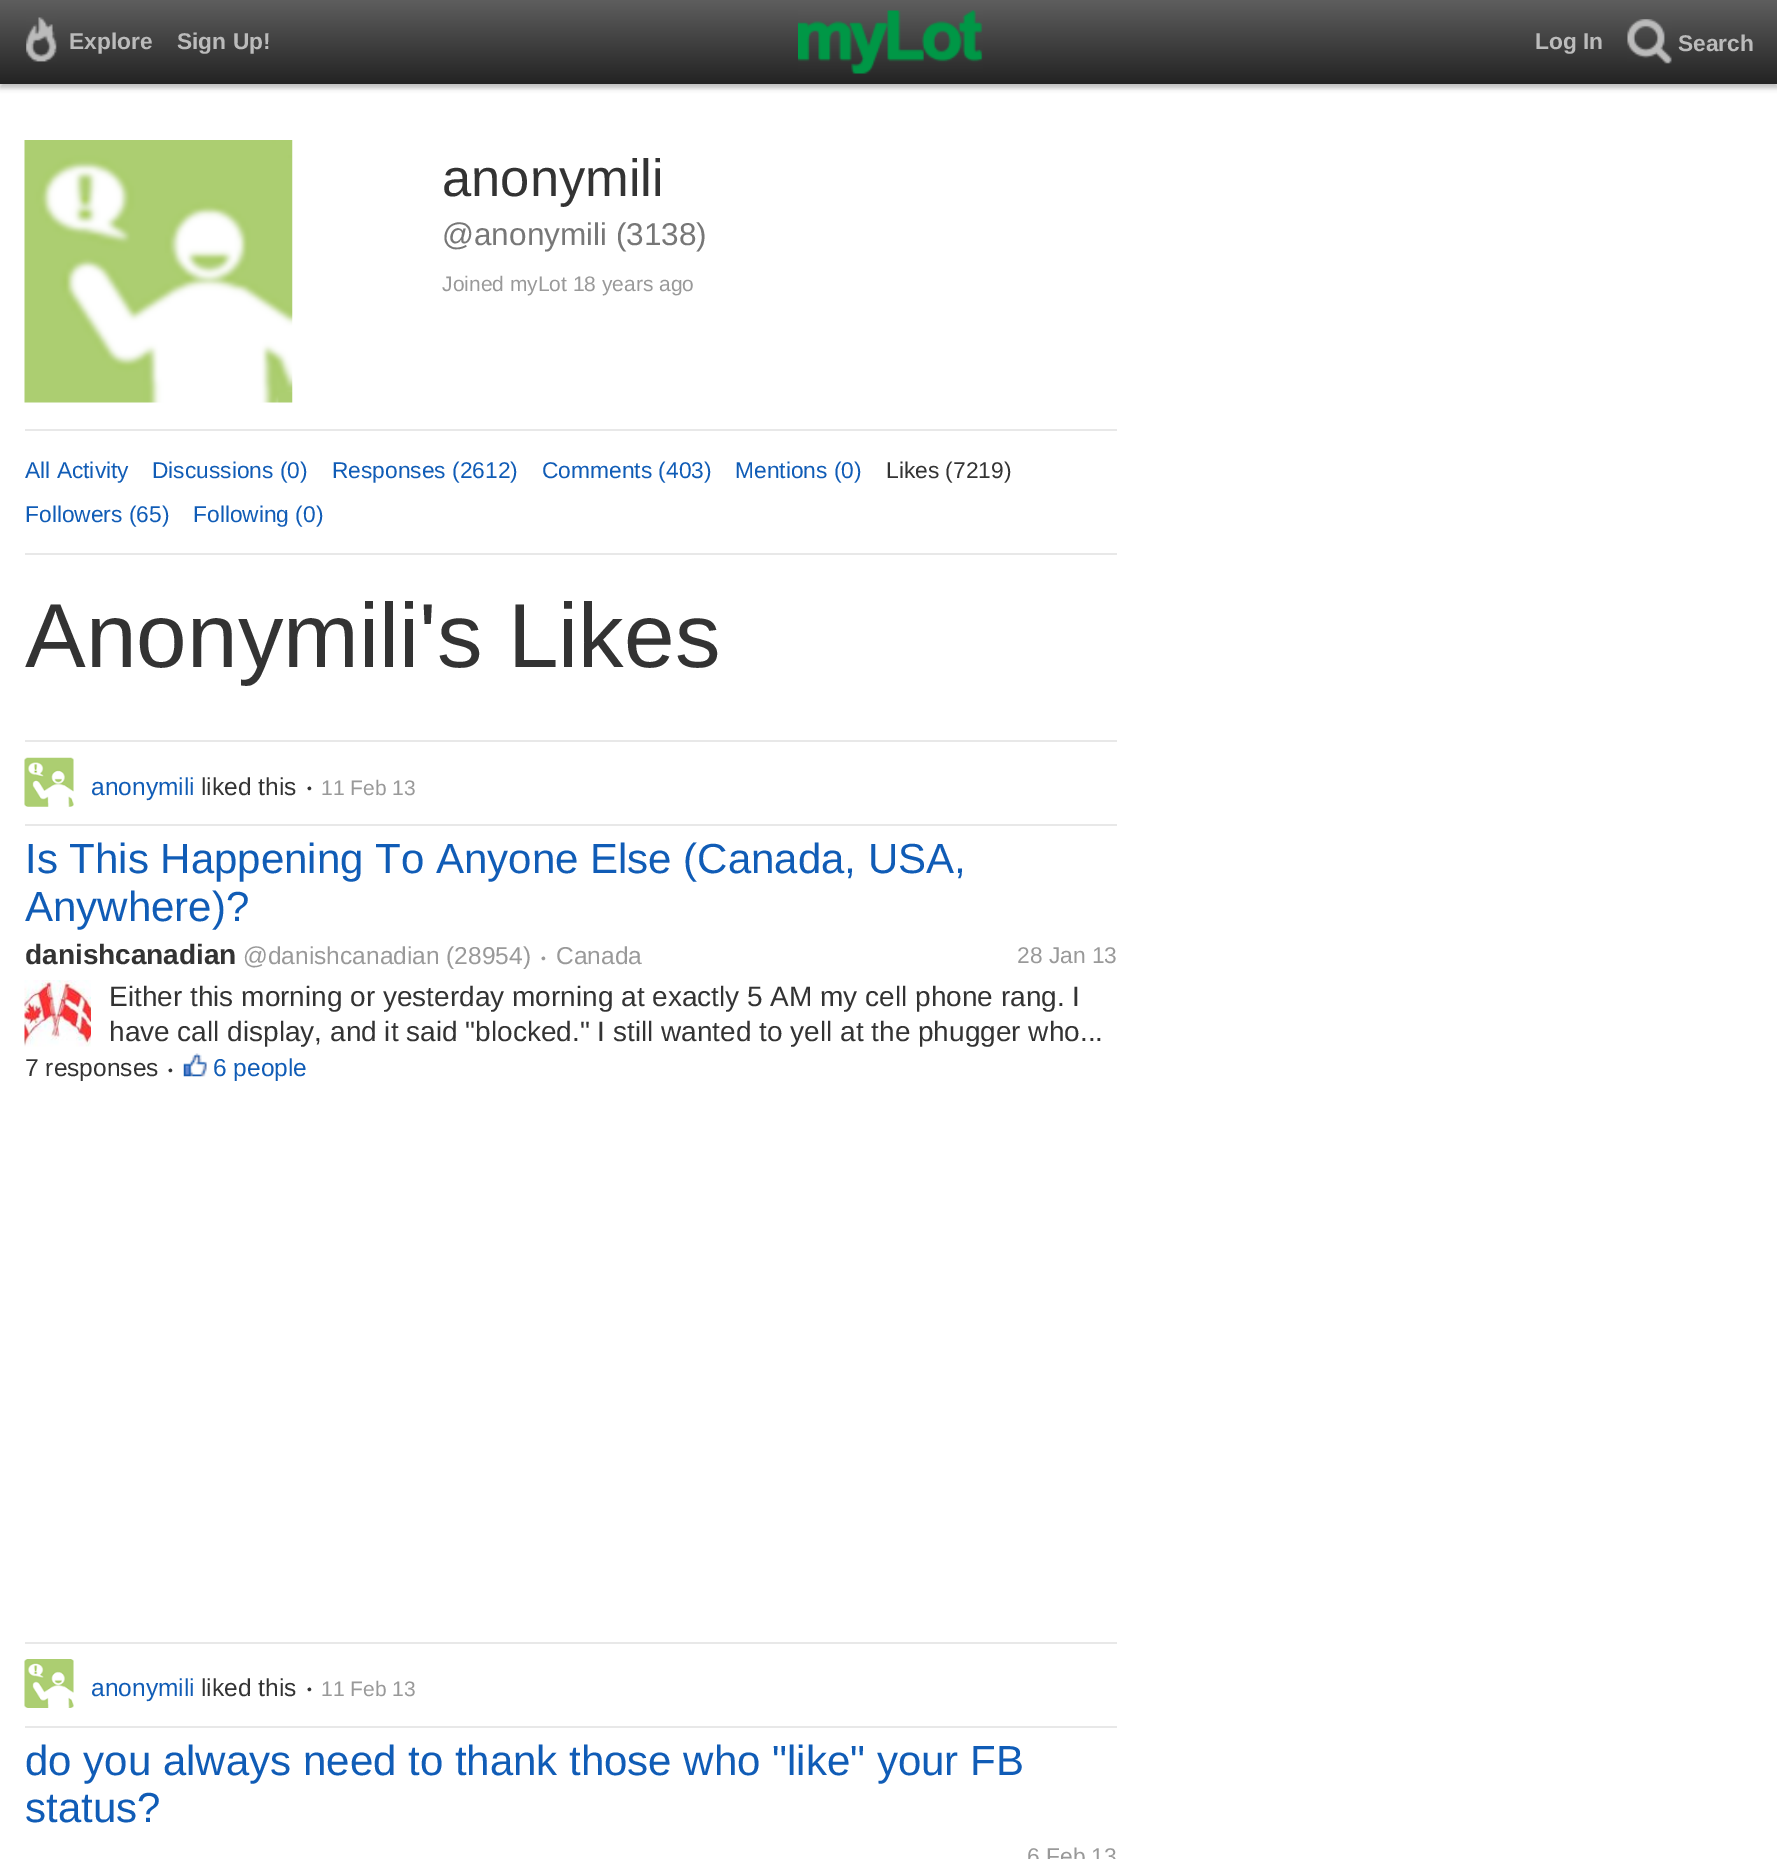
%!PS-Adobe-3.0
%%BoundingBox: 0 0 1777 1859
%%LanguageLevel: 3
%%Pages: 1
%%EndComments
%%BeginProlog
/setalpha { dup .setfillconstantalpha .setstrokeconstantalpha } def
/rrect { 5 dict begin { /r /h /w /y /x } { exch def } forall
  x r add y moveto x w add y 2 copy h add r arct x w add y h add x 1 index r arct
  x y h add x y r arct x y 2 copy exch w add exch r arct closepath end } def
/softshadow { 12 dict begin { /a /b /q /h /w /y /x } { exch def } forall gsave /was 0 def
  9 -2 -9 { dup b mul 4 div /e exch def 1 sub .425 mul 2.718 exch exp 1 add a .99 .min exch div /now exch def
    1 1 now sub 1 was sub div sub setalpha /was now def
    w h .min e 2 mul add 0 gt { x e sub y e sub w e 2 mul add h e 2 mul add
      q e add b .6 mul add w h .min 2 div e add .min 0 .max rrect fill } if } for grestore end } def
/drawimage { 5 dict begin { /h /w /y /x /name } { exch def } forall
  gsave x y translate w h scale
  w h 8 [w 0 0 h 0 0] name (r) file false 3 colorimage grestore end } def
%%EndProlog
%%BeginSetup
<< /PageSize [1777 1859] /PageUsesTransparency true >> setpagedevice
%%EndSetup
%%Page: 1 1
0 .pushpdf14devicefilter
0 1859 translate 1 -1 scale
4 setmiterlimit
1 setgray
0 0 1777 1859 rectfill
0 setgray
0 4 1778 84 0 2.5 0.25 softshadow
gsave newpath 0 0 moveto 1777 0 lineto 1777 84 lineto 0 84 lineto closepath clip newpath
<< /ShadingType 2 /ColorSpace /DeviceRGB /Coords [889 0 889 84] /Extend [true true] /Function << /FunctionType 2 /Domain [0 1] /C0 [0.369 0.369 0.369] /C1 [0.137 0.137 0.137] /N 1 >> >> shfill grestore
(images/1.raw) 26 17 31 45 drawimage
(images/2.raw) 798 10 185 64 drawimage
(images/3.raw) 1627 19 45 45 drawimage
(images/4.raw) 24 140 269 263 drawimage
0.91 setgray
25 429 1092 2 rectfill
25 553 1092 2 rectfill
25 740 1092 2 rectfill
25 824 1092 2 rectfill
(images/5.raw) 24 757 50 50 drawimage
(images/6.raw) 24 980 67 67 drawimage
(images/7.raw) 183 1053 24 24 drawimage
25 1642 1092 2 rectfill
25 1726 1092 2 rectfill
(images/8.raw) 24 1659 50 49 drawimage
/LiberationSans-Bold [22.75 0 0 -22.75 0 0] selectfont
0.733 setgray
69 49 moveto (Explore) show
177 49 moveto (Sign Up!) show
1535 49 moveto (Log In) show
1678 51 moveto (Search) show
/LiberationSans-Regular [52.5 0 0 -52.5 0 0] selectfont
0.2 setgray
442 196 moveto (anonymili) show
/LiberationSans-Regular [31.5 0 0 -31.5 0 0] selectfont
0.467 setgray
442 245 moveto (@anonymili \(3138\)) show
/LiberationSans-Regular [21 0 0 -21 0 0] selectfont
0.6 setgray
442 291 moveto (Joined myLot 18 years ago) show
/LiberationSans-Regular [22.75 0 0 -22.75 0 0] selectfont
0.063 0.361 0.714 setrgbcolor
25 478 moveto (All Activity) show
152 478 moveto (Discussions \(0\)) show
332 478 moveto (Responses \(2612\)) show
542 478 moveto (Comments \(403\)) show
735 478 moveto (Mentions \(0\)) show
0.2 setgray
886 478 moveto (Likes \(7219\)) show
0.063 0.361 0.714 setrgbcolor
25 522 moveto (Followers \(65\)) show
193 522 moveto (Following \(0\)) show
/LiberationSans-Regular [91 0 0 -91 0 0] selectfont
0.2 setgray
25 667 moveto (Anonymili's Likes) show
/LiberationSans-Regular [24.5 0 0 -24.5 0 0] selectfont
0.063 0.361 0.714 setrgbcolor
91 795 moveto (anonymili) show
0.2 setgray
201 795 moveto (liked this) show
/LiberationSans-Regular [14 0 0 -14 0 0] selectfont
307 793 moveto (•) show
/LiberationSans-Regular [21 0 0 -21 0 0] selectfont
0.6 setgray
321 795 moveto (11 Feb 13) show
/LiberationSans-Regular [42 0 0 -42 0 0] selectfont
0.063 0.361 0.714 setrgbcolor
25 873 moveto (Is This Happening To Anyone Else \(Canada, USA,) show
25 921 moveto (Anywhere\)?) show
/LiberationSans-Bold [28 0 0 -28 0 0] selectfont
0.2 setgray
25 964 moveto (danishcanadian) show
/LiberationSans-Regular [24.5 0 0 -24.5 0 0] selectfont
0.6 setgray
243 964 moveto (@danishcanadian \(28954\)) show
/LiberationSans-Regular [14 0 0 -14 0 0] selectfont
541 963 moveto (•) show
/LiberationSans-Regular [24.5 0 0 -24.5 0 0] selectfont
556 964 moveto (Canada) show
/LiberationSans-Regular [22.75 0 0 -22.75 0 0] selectfont
1017 963 moveto (28 Jan 13) show
/LiberationSans-Regular [28 0 0 -28 0 0] selectfont
0.2 setgray
109 1006 moveto (Either this morning or yesterday morning at exactly 5 AM my cell phone rang. I) show
109 1041 moveto (have call display, and it said "blocked." I still wanted to yell at the phugger who...) show
/LiberationSans-Regular [24.5 0 0 -24.5 0 0] selectfont
25 1076 moveto (7 responses) show
/LiberationSans-Regular [14 0 0 -14 0 0] selectfont
168 1075 moveto (•) show
/LiberationSans-Regular [24.5 0 0 -24.5 0 0] selectfont
0.063 0.361 0.714 setrgbcolor
213 1076 moveto (6 people) show
91 1696 moveto (anonymili) show
0.2 setgray
201 1696 moveto (liked this) show
/LiberationSans-Regular [14 0 0 -14 0 0] selectfont
307 1694 moveto (•) show
/LiberationSans-Regular [21 0 0 -21 0 0] selectfont
0.6 setgray
321 1696 moveto (11 Feb 13) show
/LiberationSans-Regular [42 0 0 -42 0 0] selectfont
0.063 0.361 0.714 setrgbcolor
25 1775 moveto (do you always need to thank those who "like" your FB) show
25 1822 moveto (status?) show
/LiberationSans-Regular [22.75 0 0 -22.75 0 0] selectfont
0.6 setgray
1027 1864 moveto (6 Feb 13) show
.poppdf14devicefilter showpage
%%EOF
